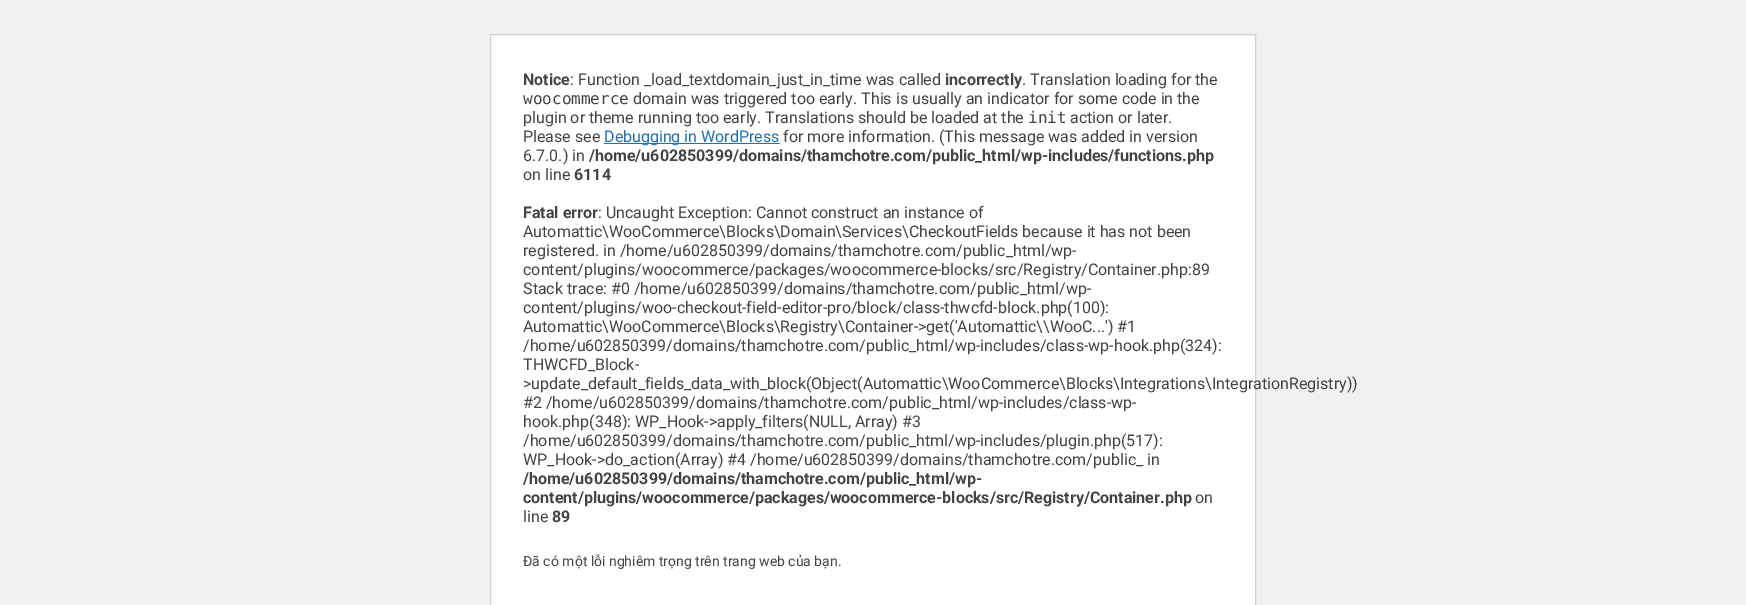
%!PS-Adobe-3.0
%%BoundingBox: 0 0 1746 605
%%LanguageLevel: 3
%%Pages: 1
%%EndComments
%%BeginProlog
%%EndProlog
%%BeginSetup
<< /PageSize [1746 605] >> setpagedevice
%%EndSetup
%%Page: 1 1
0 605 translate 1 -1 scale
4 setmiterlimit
0.945 setgray
0 0 1746 605 rectfill
1 setgray
newpath 490.5 34.5 moveto 1255.5 34.5 lineto 1255.5 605.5 lineto 490.5 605.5 lineto closepath gsave fill grestore
0.8 0.816 0.831 setrgbcolor
stroke
0.133 0.443 0.694 setrgbcolor
604 143 176 1 rectfill
/Roboto-Bold [16 0 0 -16 0 0] selectfont
0.267 setgray
523 85 moveto (Notice) show
/Roboto-Regular [16 0 0 -16 0 0] selectfont
570 85 moveto (: Function _load_textdomain_just_in_time was called) show
/Roboto-Bold [16 0 0 -16 0 0] selectfont
945 85 moveto (incorrectly) show
/Roboto-Regular [16 0 0 -16 0 0] selectfont
1022 85 moveto (. Translation loading for the) show
/DejaVuSansMono-Regular [16 0 0 -16 0 0] selectfont
523 104 moveto (woocommerce) show
/Roboto-Regular [16 0 0 -16 0 0] selectfont
633 104 moveto (domain was triggered too early. This is usually an indicator for some code in the) show
523 123 moveto (plugin or theme running too early. Translations should be loaded at the) show
/DejaVuSansMono-Regular [16 0 0 -16 0 0] selectfont
1028 123 moveto (init) show
/Roboto-Regular [16 0 0 -16 0 0] selectfont
1070 123 moveto (action or later.) show
523 142 moveto (Please see) show
0.133 0.443 0.694 setrgbcolor
604 142 moveto (Debugging in WordPress) show
0.267 setgray
783 142 moveto (for more information. \(This message was added in version) show
523 161 moveto (6.7.0.\) in) show
/Roboto-Bold [16 0 0 -16 0 0] selectfont
589 161 moveto (/home/u602850399/domains/thamchotre.com/public_html/wp-includes/functions.php) show
/Roboto-Regular [16 0 0 -16 0 0] selectfont
523 180 moveto (on line) show
/Roboto-Bold [16 0 0 -16 0 0] selectfont
574 180 moveto (6114) show
523 218 moveto (Fatal error) show
/Roboto-Regular [16 0 0 -16 0 0] selectfont
598 218 moveto (: Uncaught Exception: Cannot construct an instance of) show
523 237 moveto (Automattic\\WooCommerce\\Blocks\\Domain\\Services\\CheckoutFields because it has not been) show
523 256 moveto (registered. in /home/u602850399/domains/thamchotre.com/public_html/wp-) show
523 275 moveto (content/plugins/woocommerce/packages/woocommerce-blocks/src/Registry/Container.php:89) show
523 294 moveto (Stack trace: #0 /home/u602850399/domains/thamchotre.com/public_html/wp-) show
523 313 moveto (content/plugins/woo-checkout-field-editor-pro/block/class-thwcfd-block.php\(100\):) show
523 332 moveto (Automattic\\WooCommerce\\Blocks\\Registry\\Container->get\('Automattic\\\\WooC...'\) #1) show
523 351 moveto (/home/u602850399/domains/thamchotre.com/public_html/wp-includes/class-wp-hook.php\(324\):) show
523 370 moveto (THWCFD_Block-) show
523 389 moveto (>update_default_fields_data_with_block\(Object\(Automattic\\WooCommerce\\Blocks\\Integrations\\IntegrationRegistry\)\)) show
523 408 moveto (#2 /home/u602850399/domains/thamchotre.com/public_html/wp-includes/class-wp-) show
523 427 moveto (hook.php\(348\): WP_Hook->apply_filters\(NULL, Array\) #3) show
523 446 moveto (/home/u602850399/domains/thamchotre.com/public_html/wp-includes/plugin.php\(517\):) show
523 465 moveto (WP_Hook->do_action\(Array\) #4 /home/u602850399/domains/thamchotre.com/public_ in) show
/Roboto-Bold [16 0 0 -16 0 0] selectfont
523 484 moveto (/home/u602850399/domains/thamchotre.com/public_html/wp-) show
523 503 moveto (content/plugins/woocommerce/packages/woocommerce-blocks/src/Registry/Container.php) show
/Roboto-Regular [16 0 0 -16 0 0] selectfont
1195 503 moveto (on) show
523 522 moveto (line) show
/Roboto-Bold [16 0 0 -16 0 0] selectfont
552 522 moveto (89) show
/Roboto-Regular [14 0 0 -14 0 0] selectfont
523 566 moveto (Đã có một lỗi nghiêm trọng trên trang web của bạn.) show
showpage
%%EOF
